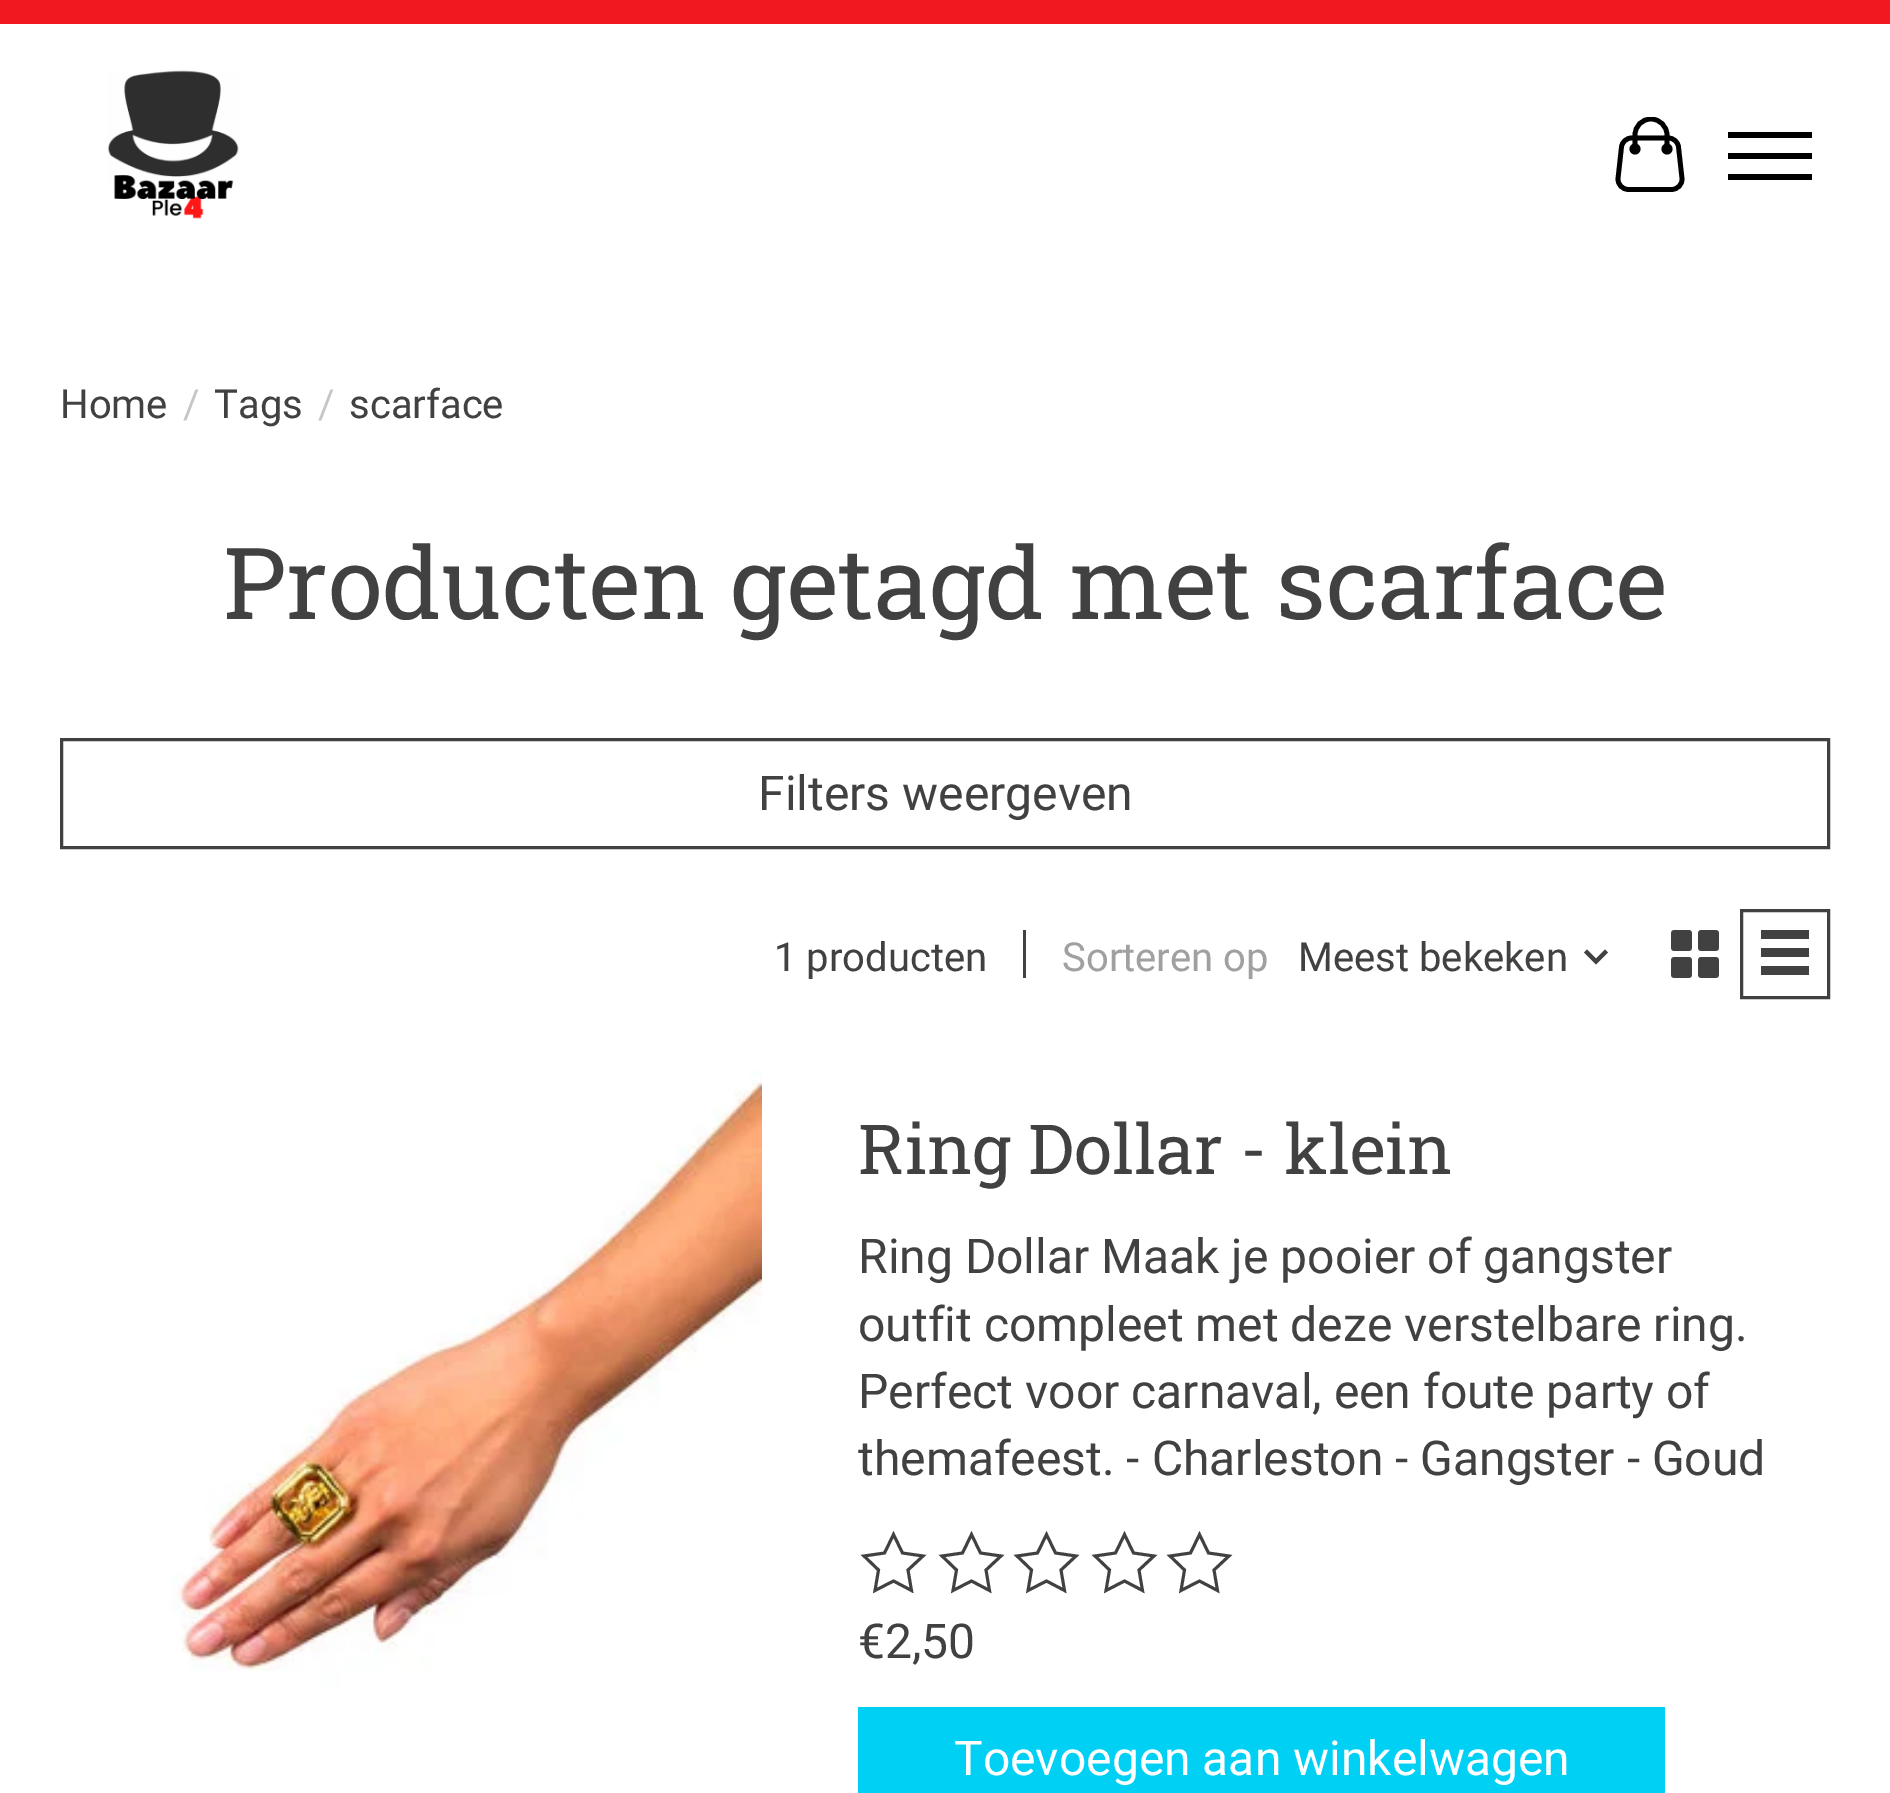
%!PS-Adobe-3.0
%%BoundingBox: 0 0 1890 1793
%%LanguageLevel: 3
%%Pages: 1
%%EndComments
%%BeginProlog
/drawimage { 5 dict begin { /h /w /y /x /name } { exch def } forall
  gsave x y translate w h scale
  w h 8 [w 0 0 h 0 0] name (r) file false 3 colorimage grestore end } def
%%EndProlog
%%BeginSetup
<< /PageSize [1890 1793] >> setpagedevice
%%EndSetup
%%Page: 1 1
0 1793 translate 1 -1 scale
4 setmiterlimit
1 setgray
0 0 1890 1793 rectfill
0.949 0.094 0.125 setrgbcolor
0 0 1890 24 rectfill
(images/1.raw) 107 70 132 149 drawimage
0 setgray
4.7 setlinewidth
newpath 1621.5 147 moveto 1622 142 1626.5 138 1631.5 138 curveto 1668.5 138 lineto 1673.5 138 1678 142 1678.5 147 curveto 1682 178.5 lineto 1682.5 184.5 1677.5 189.5 1671.5 189.5 curveto 1628.5 189.5 lineto 1622.5 189.5 1617.5 184.5 1618 178.5 curveto closepath stroke
gsave
1611 117 78 78 rectclip
newpath 1635 147 moveto 1635 135 lineto 1635 126 1642 119 1651 119 curveto 1659.5 119 1667 126 1667 135 curveto 1667 147 lineto stroke
grestore
newpath 1635 149 5.5 0 360 arc closepath fill
newpath 1667 149 5.5 0 360 arc closepath fill
1728 153 84 6 rectfill
1728 132 84 6 rectfill
1728 174 84 6 rectfill
0.255 setgray
3 setlinewidth
61.5 739.5 1767 108 rectstroke
1023 930 3 48 rectfill
newpath 1596 964.5 moveto 1584 952.5 lineto 1587 949.5 lineto 1596 958.5 lineto 1605 949.5 lineto 1608 952.5 lineto closepath fill
(images/2.raw) 1671 930 48 48 drawimage
1741.5 910.5 87 87 rectstroke
1761 930 48 9 rectfill
1761 948 48 9 rectfill
1761 966 48 9 rectfill
(images/3.raw) 60 1071 702 702 drawimage
2.9 setlinewidth
newpath 893.5 1534.5 moveto 902.5 1553 lineto 923 1556 lineto 908 1570 lineto 911.5 1590.5 lineto 893.5 1581 lineto 875 1590.5 lineto 878.5 1570 lineto 864 1556 lineto 884.5 1553 lineto closepath stroke
newpath 971.5 1534.5 moveto 980.5 1553 lineto 1001 1556 lineto 986 1570 lineto 989.5 1590.5 lineto 971.5 1581 lineto 953 1590.5 lineto 956.5 1570 lineto 942 1556 lineto 962.5 1553 lineto closepath stroke
newpath 1046.5 1534.5 moveto 1055.5 1553 lineto 1076 1556 lineto 1061 1570 lineto 1064.5 1590.5 lineto 1046.5 1581 lineto 1028 1590.5 lineto 1031.5 1570 lineto 1017 1556 lineto 1037.5 1553 lineto closepath stroke
newpath 1124.5 1534.5 moveto 1133.5 1553 lineto 1154 1556 lineto 1139 1570 lineto 1142.5 1590.5 lineto 1124.5 1581 lineto 1106 1590.5 lineto 1109.5 1570 lineto 1095 1556 lineto 1115.5 1553 lineto closepath stroke
newpath 1199.5 1534.5 moveto 1208.5 1553 lineto 1229 1556 lineto 1214 1570 lineto 1217.5 1590.5 lineto 1199.5 1581 lineto 1181 1590.5 lineto 1184.5 1570 lineto 1170 1556 lineto 1190.5 1553 lineto closepath stroke
0.004 0.816 0.961 setrgbcolor
858 1707 807 86 rectfill
/Roboto-Regular [40 0 0 -40 0 0] selectfont
0.255 setgray
60 418 moveto (Home) show
0.776 setgray
183 418 moveto (/) show
0.255 setgray
214 418 moveto (Tags) show
0.776 setgray
318 418 moveto (/) show
0.255 setgray
349 418 moveto (scarface) show
/RobotoSlab-Regular [99.5 0 0 -99.5 0 0] selectfont
223 619 moveto (Producten getagd met scarface) show
/Roboto-Regular [48 0 0 -48 0 0] selectfont
758 810 moveto (Filters weergeven) show
/Roboto-Regular [40 0 0 -40 0 0] selectfont
774 971 moveto (1 producten) show
0.627 setgray
1062 971 moveto (Sorteren op) show
0.255 setgray
1298 971 moveto (Meest bekeken) show
/RobotoSlab-Regular [69.1 0 0 -69.1 0 0] selectfont
858 1174 moveto (Ring Dollar - klein) show
/Roboto-Regular [48 0 0 -48 0 0] selectfont
858 1273 moveto (Ring Dollar Maak je pooier of gangster) show
858 1341 moveto (outfit compleet met deze verstelbare ring.) show
858 1408 moveto (Perfect voor carnaval, een foute party of) show
858 1475 moveto (themafeest. - Charleston - Gangster - Goud) show
858 1658 moveto (€2,50) show
1 setgray
954 1775 moveto (Toevoegen aan winkelwagen) show
showpage
%%EOF
